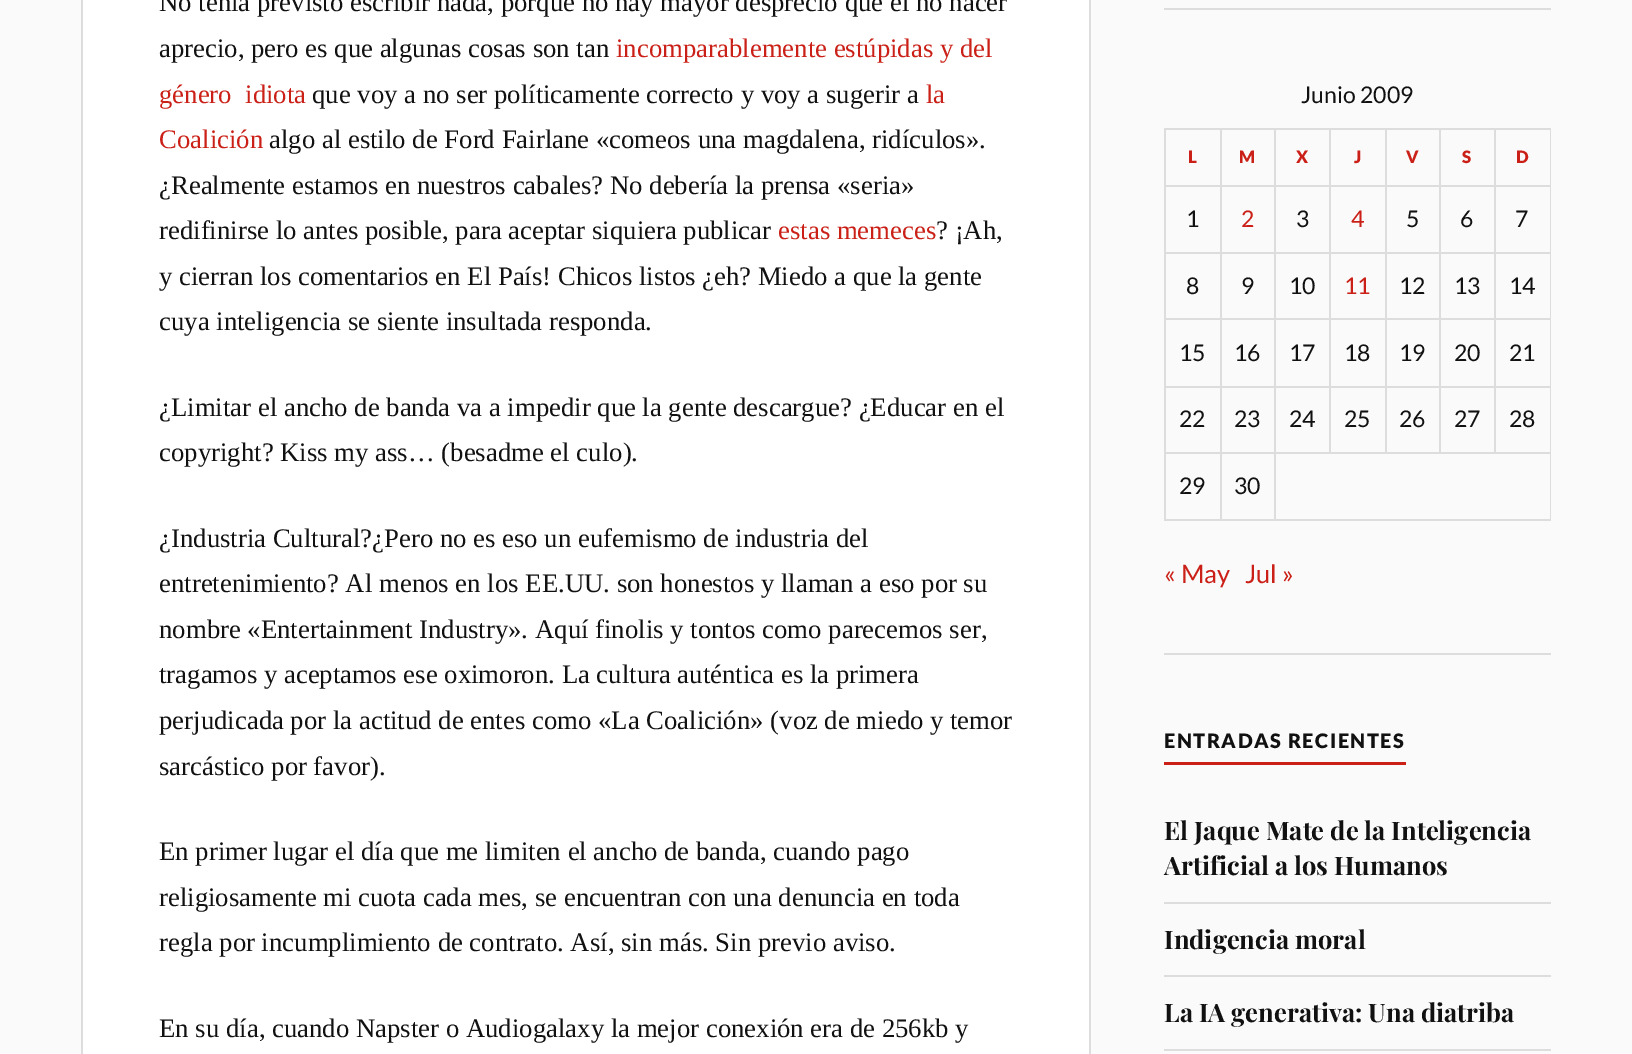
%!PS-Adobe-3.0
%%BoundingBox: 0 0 1632 1054
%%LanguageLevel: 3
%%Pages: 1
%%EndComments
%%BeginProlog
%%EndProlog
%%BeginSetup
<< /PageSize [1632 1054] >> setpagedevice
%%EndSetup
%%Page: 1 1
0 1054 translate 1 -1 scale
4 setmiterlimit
0.98 setgray
0 0 1632 1054 rectfill
1 setgray
83 0 1006 1054 rectfill
0.867 setgray
1089 0 2 1054 rectfill
81 0 2 1054 rectfill
1164 8 387 2 rectfill
1164 128 387 2 rectfill
1550 128 1 393 rectfill
1494 452 57 2 rectfill
1494 386 2 67 rectfill
1494 386 57 2 rectfill
1494 318 2 69 rectfill
1494 318 57 2 rectfill
1494 252 2 68 rectfill
1494 252 57 2 rectfill
1494 185 2 69 rectfill
1494 185 57 2 rectfill
1494 128 2 58 rectfill
1439 452 57 2 rectfill
1439 386 2 67 rectfill
1439 386 57 2 rectfill
1439 318 2 69 rectfill
1439 318 57 2 rectfill
1439 252 2 68 rectfill
1439 252 57 2 rectfill
1439 185 2 69 rectfill
1439 185 57 2 rectfill
1439 128 2 58 rectfill
1385 452 55 2 rectfill
1385 386 2 67 rectfill
1385 386 55 2 rectfill
1385 318 2 69 rectfill
1385 318 55 2 rectfill
1385 252 2 68 rectfill
1385 252 55 2 rectfill
1385 185 2 69 rectfill
1385 185 55 2 rectfill
1385 128 2 58 rectfill
1329 452 57 2 rectfill
1329 386 2 67 rectfill
1329 386 57 2 rectfill
1329 318 2 69 rectfill
1329 318 57 2 rectfill
1329 252 2 68 rectfill
1329 252 57 2 rectfill
1329 185 2 69 rectfill
1329 185 57 2 rectfill
1329 128 2 58 rectfill
1274 519 277 2 rectfill
1274 452 2 69 rectfill
1274 452 57 2 rectfill
1274 386 2 67 rectfill
1274 386 57 2 rectfill
1274 318 2 69 rectfill
1274 318 57 2 rectfill
1274 252 2 68 rectfill
1274 252 57 2 rectfill
1274 185 2 69 rectfill
1274 185 57 2 rectfill
1274 128 2 58 rectfill
1220 519 55 2 rectfill
1220 452 2 69 rectfill
1220 452 55 2 rectfill
1220 386 2 67 rectfill
1220 386 55 2 rectfill
1220 318 2 69 rectfill
1220 318 55 2 rectfill
1220 252 2 68 rectfill
1220 252 55 2 rectfill
1220 185 2 69 rectfill
1220 185 55 2 rectfill
1220 128 2 58 rectfill
1164 519 57 2 rectfill
1164 452 2 69 rectfill
1164 452 57 2 rectfill
1164 386 2 67 rectfill
1164 386 57 2 rectfill
1164 318 2 69 rectfill
1164 318 57 2 rectfill
1164 252 2 68 rectfill
1164 252 57 2 rectfill
1164 185 2 69 rectfill
1164 185 57 2 rectfill
1164 128 2 58 rectfill
1164 653 387 2 rectfill
0.792 0.125 0.09 setrgbcolor
1164 762 242 3 rectfill
0.867 setgray
1164 902 387 2 rectfill
1164 975 387 2 rectfill
1164 1049 387 2 rectfill
/LiberationSerif-Regular [26.75 0 0 -26.75 0 0] selectfont
0.067 setgray
159 11 moveto (No tenía previsto escribir nada, porque no hay mayor desprecio que el no hacer) show
159 57 moveto (aprecio, pero es que algunas cosas son tan) show
0.792 0.125 0.09 setrgbcolor
616 57 moveto (incomparablemente estúpidas y del) show
159 103 moveto (género  idiota) show
0.067 setgray
312 103 moveto (que voy a no ser políticamente correcto y voy a sugerir a) show
0.792 0.125 0.09 setrgbcolor
926 103 moveto (la) show
159 148 moveto (Coalición) show
0.067 setgray
269 148 moveto (algo al estilo de Ford Fairlane «comeos una magdalena, ridículos».) show
159 194 moveto (¿Realmente estamos en nuestros cabales? No debería la prensa «seria») show
159 239 moveto (redifinirse lo antes posible, para aceptar siquiera publicar) show
0.792 0.125 0.09 setrgbcolor
778 239 moveto (estas memeces) show
0.067 setgray
936 239 moveto (? ¡Ah,) show
159 285 moveto (y cierran los comentarios en El País! Chicos listos ¿eh? Miedo a que la gente) show
159 330 moveto (cuya inteligencia se siente insultada responda.) show
159 416 moveto (¿Limitar el ancho de banda va a impedir que la gente descargue? ¿Educar en el) show
159 461 moveto (copyright? Kiss my ass… \(besadme el culo\).) show
159 547 moveto (¿Industria Cultural?¿Pero no es eso un eufemismo de industria del) show
159 592 moveto (entretenimiento? Al menos en los EE.UU. son honestos y llaman a eso por su) show
159 638 moveto (nombre «Entertainment Industry». Aquí finolis y tontos como parecemos ser,) show
159 683 moveto (tragamos y aceptamos ese oximoron. La cultura auténtica es la primera) show
159 729 moveto (perjudicada por la actitud de entes como «La Coalición» \(voz de miedo y temor) show
159 775 moveto (sarcástico por favor\).) show
159 860 moveto (En primer lugar el día que me limiten el ancho de banda, cuando pago) show
159 906 moveto (religiosamente mi cuota cada mes, se encuentran con una denuncia en toda) show
159 951 moveto (regla por incumplimiento de contrato. Así, sin más. Sin previo aviso.) show
159 1037 moveto (En su día, cuando Napster o Audiogalaxy la mejor conexión era de 256kb y) show
/Lato-Regular [23 0 0 -23 0 0] selectfont
1301 103 moveto (Junio 2009) show
/Lato-Black [17 0 0 -17 0 0] selectfont
0.792 0.125 0.09 setrgbcolor
1188 163 moveto (L) show
1239 163 moveto (M) show
1296 163 moveto (X) show
1354 163 moveto (J) show
1406 163 moveto (V) show
1462 163 moveto (S) show
1516 163 moveto (D) show
/Lato-Regular [23 0 0 -23 0 0] selectfont
0.067 setgray
1186 227 moveto (1) show
0.792 0.125 0.09 setrgbcolor
1241 227 moveto (2) show
0.067 setgray
1296 227 moveto (3) show
0.792 0.125 0.09 setrgbcolor
1351 227 moveto (4) show
0.067 setgray
1406 227 moveto (5) show
1460 227 moveto (6) show
1515 227 moveto (7) show
1186 294 moveto (8) show
1241 294 moveto (9) show
1289 294 moveto (10) show
0.792 0.125 0.09 setrgbcolor
1344 294 moveto (11) show
0.067 setgray
1399 294 moveto (12) show
1454 294 moveto (13) show
1509 294 moveto (14) show
1179 361 moveto (15) show
1234 361 moveto (16) show
1289 361 moveto (17) show
1344 361 moveto (18) show
1399 361 moveto (19) show
1454 361 moveto (20) show
1509 361 moveto (21) show
1179 427 moveto (22) show
1234 427 moveto (23) show
1289 427 moveto (24) show
1344 427 moveto (25) show
1399 427 moveto (26) show
1454 427 moveto (27) show
1509 427 moveto (28) show
1179 494 moveto (29) show
1234 494 moveto (30) show
/Lato-Regular [25.5 0 0 -25.5 0 0] selectfont
0.792 0.125 0.09 setrgbcolor
1164 583 moveto (« May) show
1245 583 moveto (Jul ») show
/Lato-Black [19.9 0 0 -19.9 0 0] selectfont
0.067 setgray
1164 748 moveto 1.5 0 (ENTRADAS RECIENTES) ashow
/PlayfairDisplay-Bold [25.5 0 0 -25.5 0 0] selectfont
1164 840 moveto (El Jaque Mate de la Inteligencia) show
1164 875 moveto (Artificial a los Humanos) show
1164 949 moveto (Indigencia moral) show
1164 1022 moveto (La IA generativa: Una diatriba) show
showpage
%%EOF
